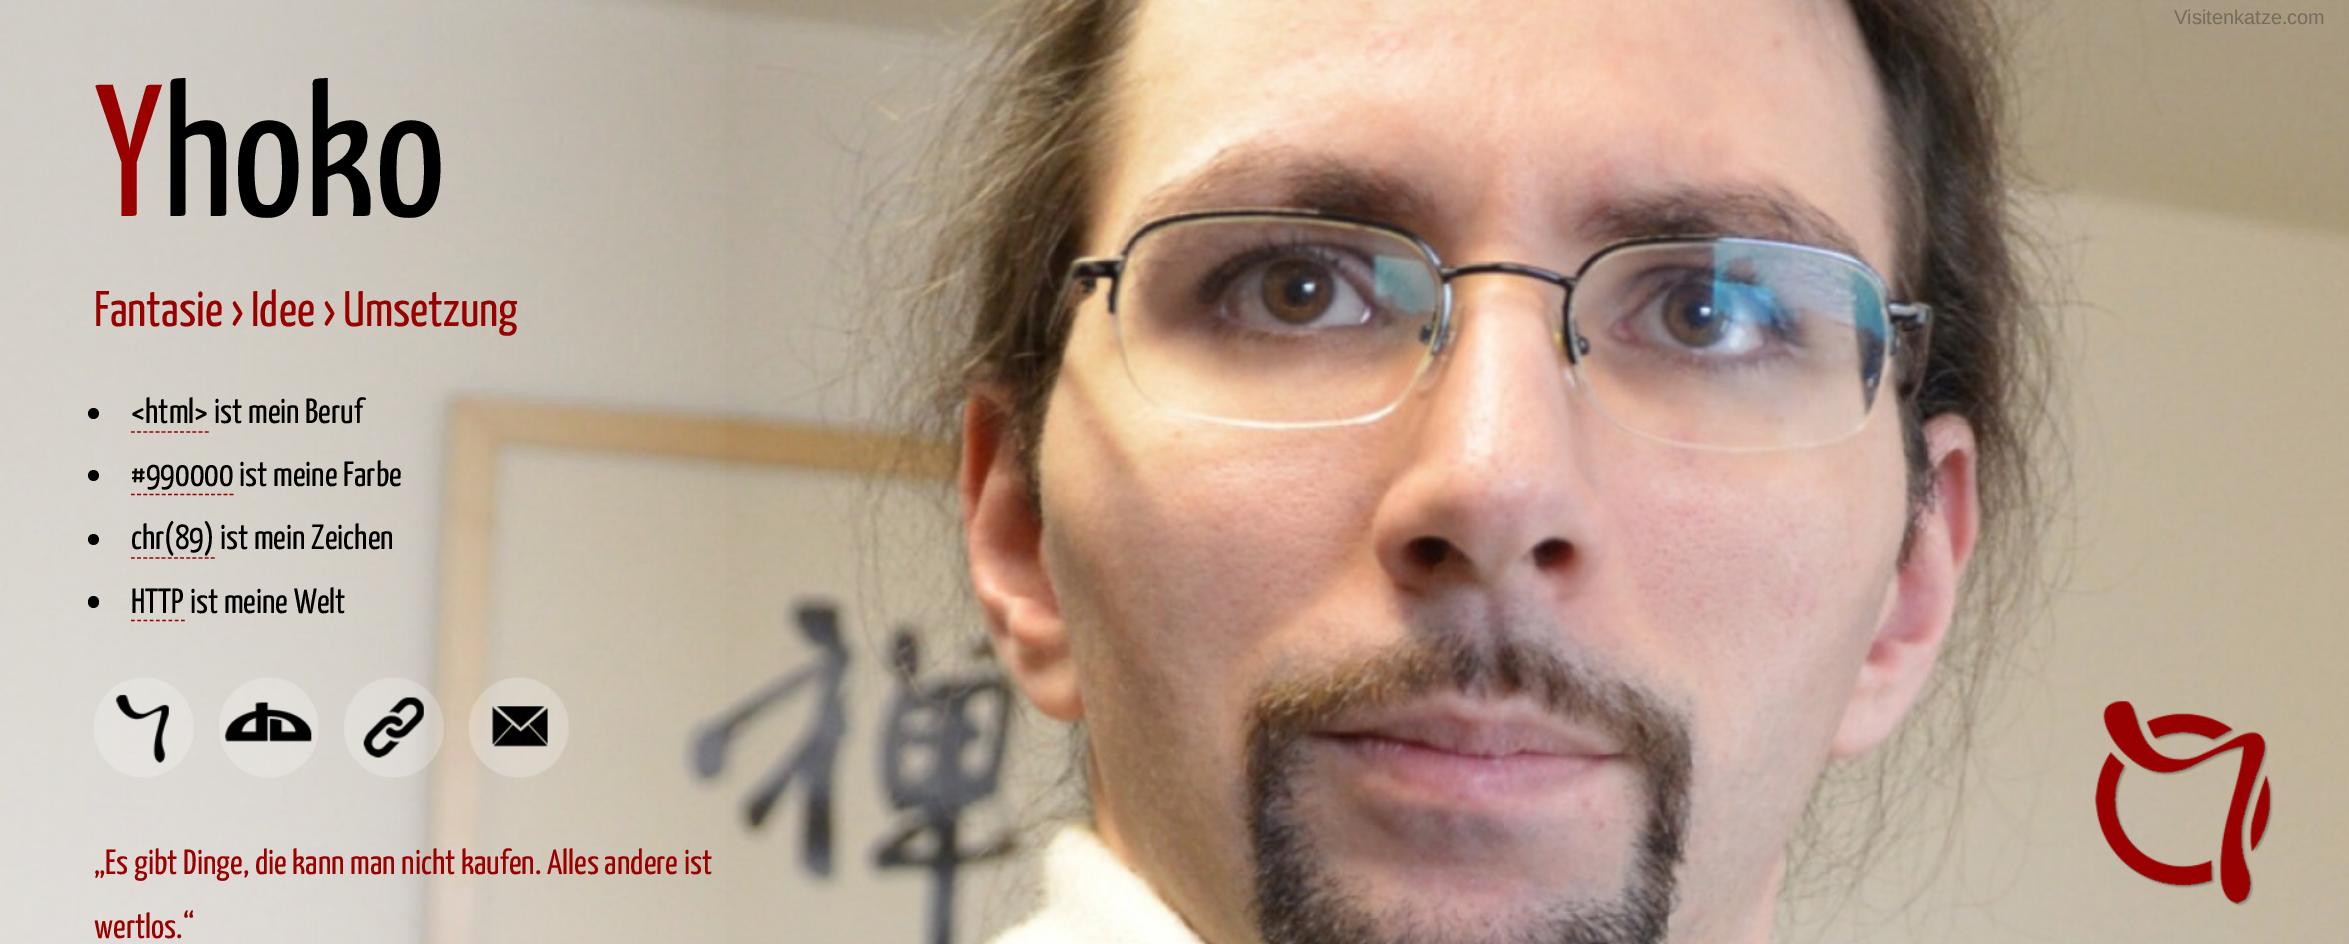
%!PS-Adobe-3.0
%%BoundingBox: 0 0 2349 944
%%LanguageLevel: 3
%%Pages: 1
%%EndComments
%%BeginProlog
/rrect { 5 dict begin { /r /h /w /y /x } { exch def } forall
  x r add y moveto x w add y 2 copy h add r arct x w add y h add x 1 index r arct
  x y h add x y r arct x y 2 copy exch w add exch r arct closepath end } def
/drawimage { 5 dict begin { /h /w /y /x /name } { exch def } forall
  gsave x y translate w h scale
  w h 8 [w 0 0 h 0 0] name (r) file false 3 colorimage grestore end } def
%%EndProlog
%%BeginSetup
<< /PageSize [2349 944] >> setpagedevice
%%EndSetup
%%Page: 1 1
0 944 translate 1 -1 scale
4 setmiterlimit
1 setgray
0 0 2349 944 rectfill
(images/1.raw) 0 0 2349 944 drawimage
(images/2.raw) 0 0 726 944 drawimage
0 setgray
newpath 93.5 413.5 5.5 0 360 arc closepath fill
0.6 0 0 setrgbcolor
1.2 setlinewidth
[3.75 2.4] 0 setdash
newpath 131 432 moveto 209 432 lineto stroke
0 setgray
newpath 93.5 475.5 5.5 0 360 arc closepath fill
0.6 0 0 setrgbcolor
[3.75 2.42] 0 setdash
newpath 131 494.5 moveto 234 494.5 lineto stroke
0 setgray
newpath 93.5 539.5 5.5 0 360 arc closepath fill
0.6 0 0 setrgbcolor
[3.75 2.4] 0 setdash
newpath 131 558 moveto 215 558 lineto stroke
0 setgray
88 596 11 12 5.5 rrect fill
0.6 0 0 setrgbcolor
[3.75 2.5] 0 setdash
newpath 131 620.5 moveto 185 620.5 lineto stroke
(images/3.raw) 94 677 100 101 drawimage
(images/4.raw) 116 694 53 69 drawimage
(images/5.raw) 219 677 100 101 drawimage
(images/6.raw) 224 702 88 40 drawimage
(images/7.raw) 344 677 100 101 drawimage
(images/8.raw) 363 697 61 61 drawimage
(images/9.raw) 468 677 101 101 drawimage
(images/10.raw) 492 706 56 41 drawimage
(images/11.raw) 2094 701 179 205 drawimage
/LiberationSans-Regular [20 0 0 -20 0 0] selectfont
0.463 0.424 0.357 setrgbcolor
2174 24 moveto (Visitenkatze.com) show
/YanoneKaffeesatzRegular-Regular [188 0 0 -188 0 0] selectfont
0.6 0 0 setrgbcolor
94 216 moveto (Y) show
0 setgray
162 216 moveto (hoko) show
/YanoneKaffeesatzRegular-Regular [50 0 0 -50 0 0] selectfont
0.6 0 0 setrgbcolor
94 326 moveto (Fantasie › Idee › Umsetzung) show
/YanoneKaffeesatzRegular-Regular [35 0 0 -35 0 0] selectfont
0 setgray
131 423 moveto (<html> ist mein Beruf) show
131 486 moveto (#990000 ist meine Farbe) show
131 549 moveto (chr\(89\) ist mein Zeichen) show
131 613 moveto (HTTP ist meine Welt) show
0.6 0 0 setrgbcolor
94 874 moveto („Es gibt Dinge, die kann man nicht kaufen. Alles andere ist) show
94 938 moveto (wertlos.“) show
showpage
%%EOF
